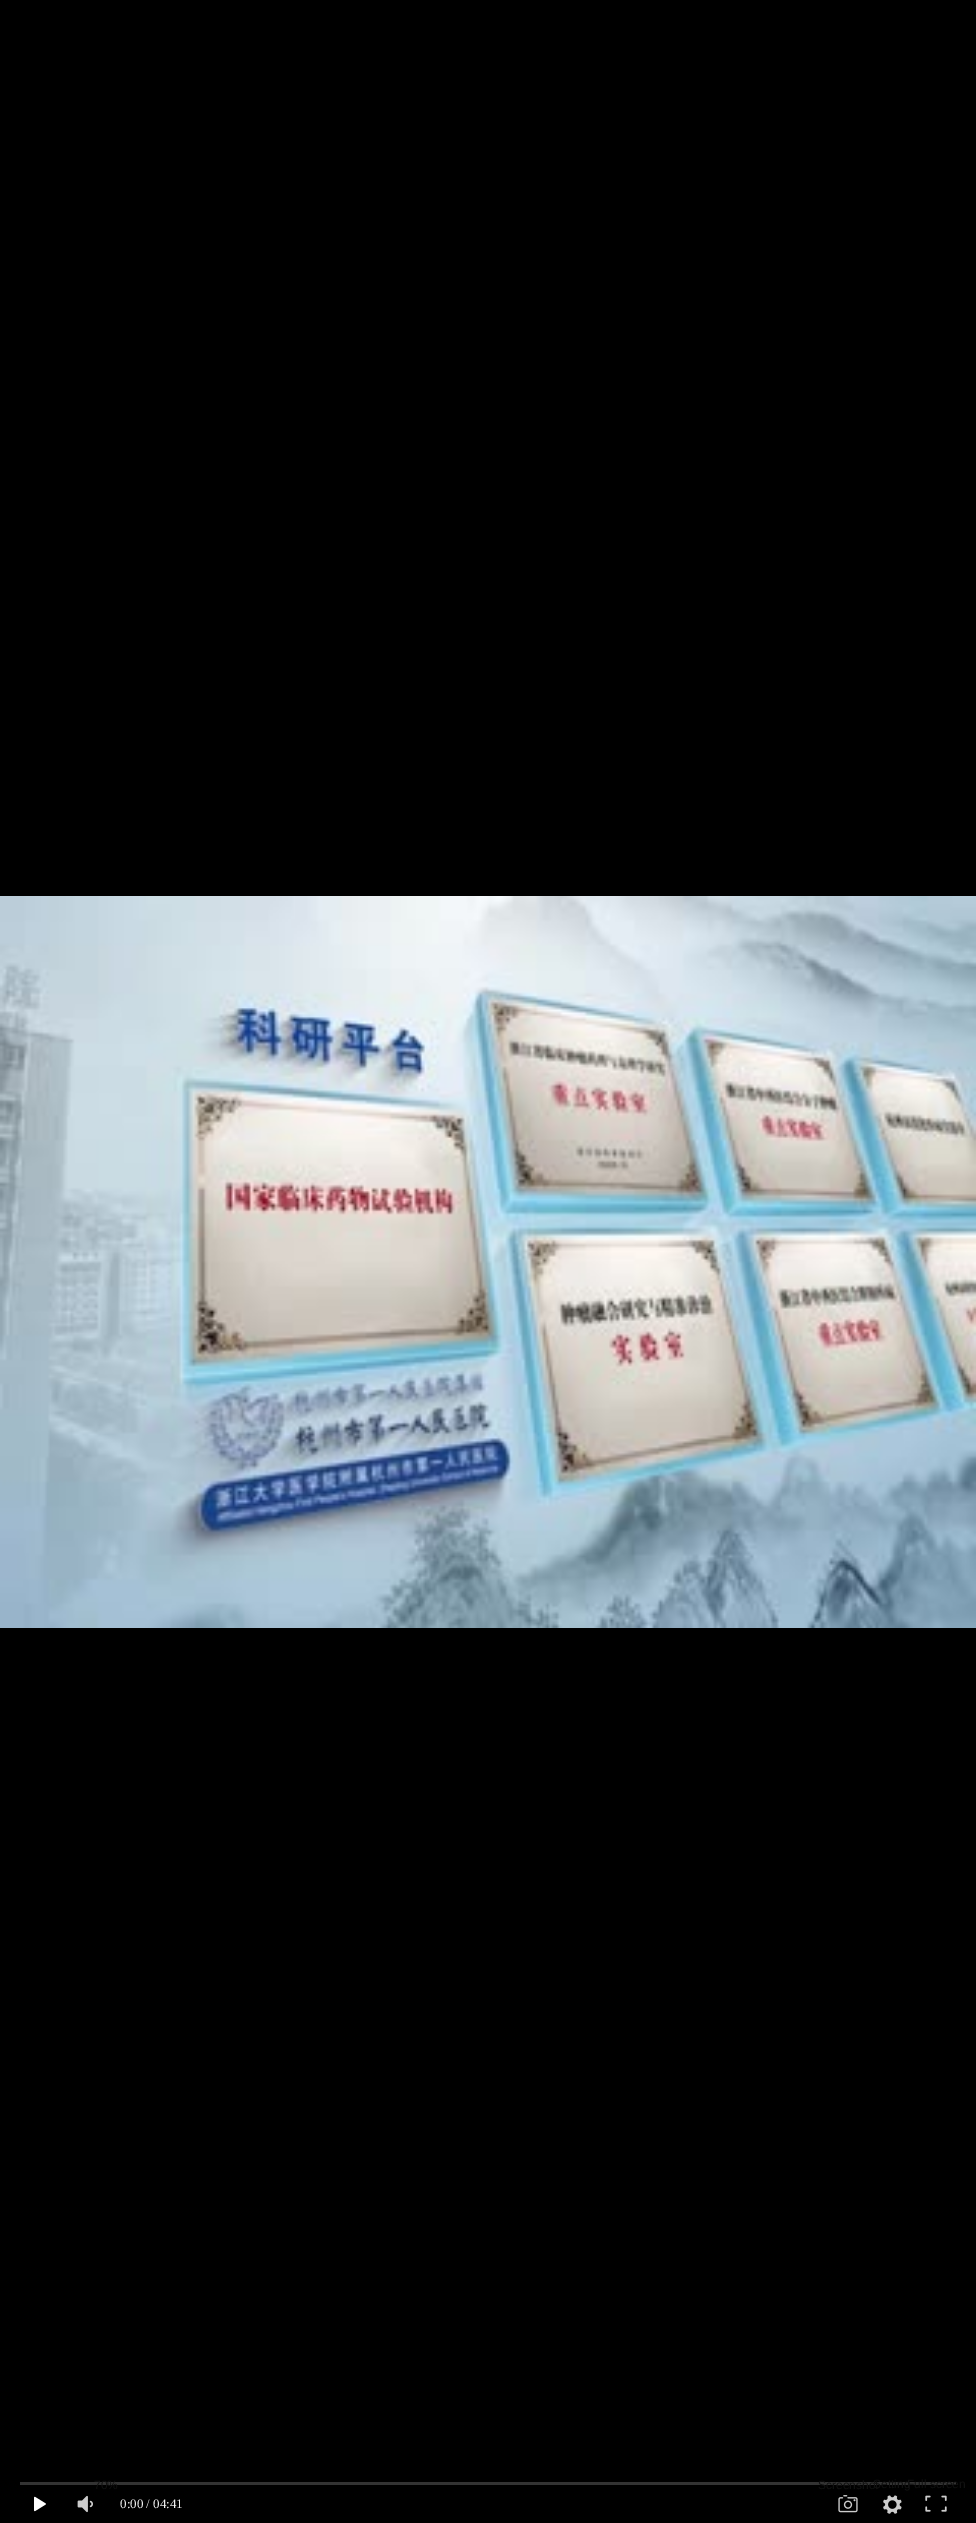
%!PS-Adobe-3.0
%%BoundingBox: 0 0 976 2523
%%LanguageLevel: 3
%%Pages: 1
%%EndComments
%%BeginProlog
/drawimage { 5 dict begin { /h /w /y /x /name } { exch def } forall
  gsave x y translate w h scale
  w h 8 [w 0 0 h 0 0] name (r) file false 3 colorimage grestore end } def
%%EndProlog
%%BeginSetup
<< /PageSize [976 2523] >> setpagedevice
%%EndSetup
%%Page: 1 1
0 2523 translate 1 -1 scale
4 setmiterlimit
0 setgray
0 0 976 2523 rectfill
(images/1.raw) 0 896 976 732 drawimage
(images/2.raw) 77 2495 16 18 drawimage
(images/3.raw) 34 2496 12 16 drawimage
(images/4.raw) 838 2495 20 18 drawimage
(images/5.raw) 883 2495 19 19 drawimage
(images/6.raw) 925 2495 22 17 drawimage
0.2 setgray
20 2482 936 3 rectfill
/LiberationSans-Regular [12 0 0 -12 0 0] selectfont
0.067 setgray
94 2489 moveto (70%) show
/LiberationSerif-Regular [13 0 0 -13 0 0] selectfont
0.933 setgray
120 2508 moveto (0:00 / 04:41) show
/LiberationSans-Regular [12 0 0 -12 0 0] selectfont
0.067 setgray
818 2489 moveto (Screenshot) show
873 2488 moveto (Setting) show
907 2488 moveto (Full screen) show
showpage
%%EOF
